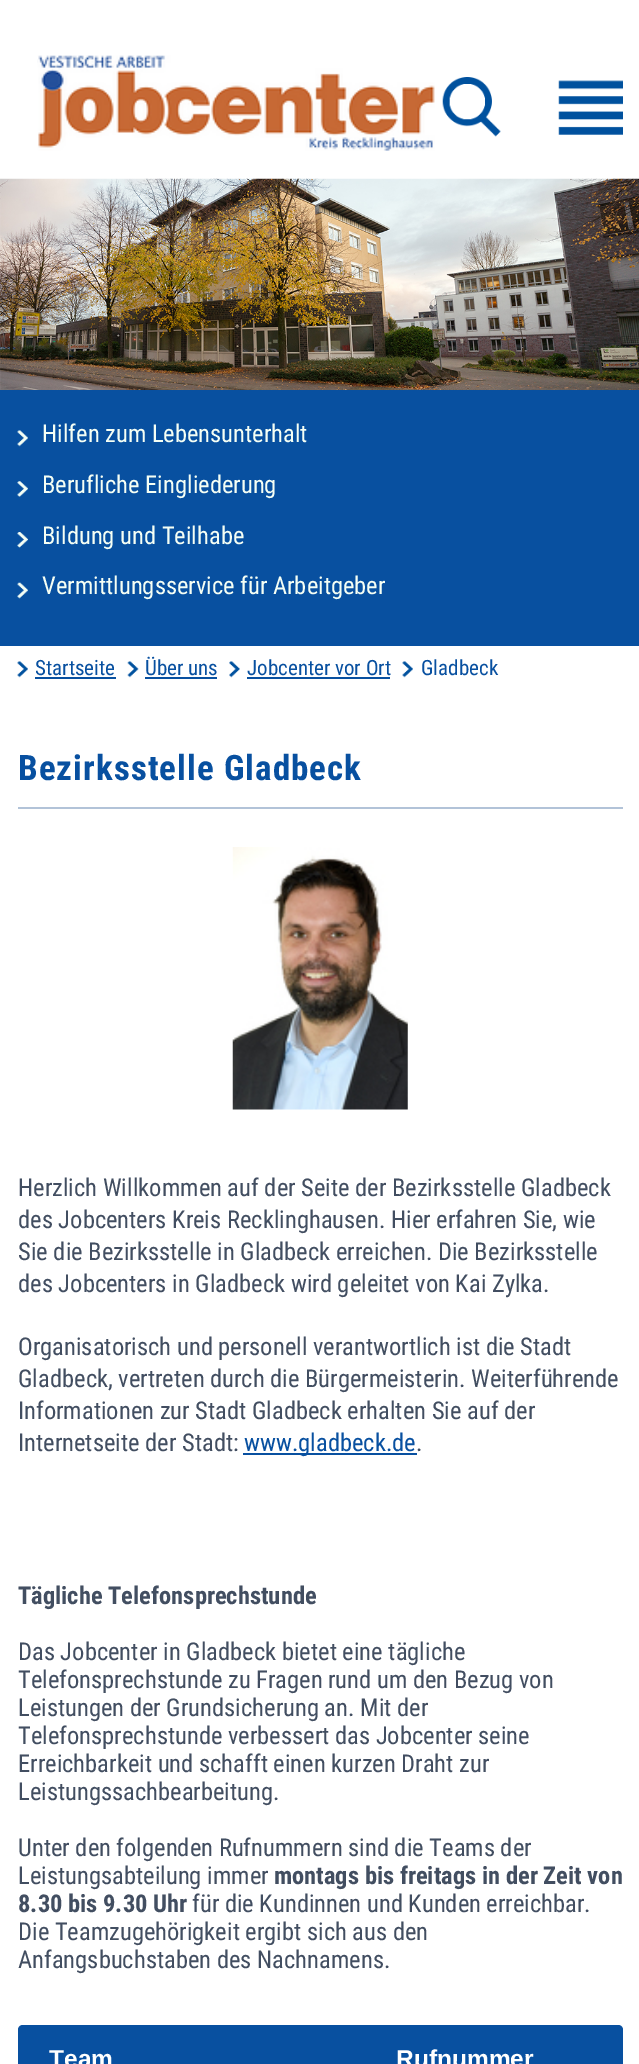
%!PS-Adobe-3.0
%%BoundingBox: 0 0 639 2064
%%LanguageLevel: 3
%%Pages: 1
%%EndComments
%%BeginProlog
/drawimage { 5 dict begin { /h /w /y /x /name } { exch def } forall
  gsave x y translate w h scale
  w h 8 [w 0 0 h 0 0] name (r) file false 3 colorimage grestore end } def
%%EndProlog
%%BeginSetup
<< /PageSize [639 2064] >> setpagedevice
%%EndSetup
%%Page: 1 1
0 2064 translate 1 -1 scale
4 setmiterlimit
1 setgray
0 0 639 2064 rectfill
(images/1.raw) 37 55 398 96 drawimage
(images/2.raw) 442 77 59 60 drawimage
(images/3.raw) 558 80 65 55 drawimage
(images/4.raw) 0 178 639 212 drawimage
0.031 0.314 0.627 setrgbcolor
0 390 639 256 rectfill
(images/5.raw) 17 430 11 17 drawimage
(images/6.raw) 17 481 11 16 drawimage
(images/7.raw) 17 532 11 16 drawimage
(images/8.raw) 17 582 11 17 drawimage
(images/9.raw) 17 661 11 17 drawimage
35 677 81 2 rectfill
(images/10.raw) 127 661 12 17 drawimage
145 677 72 2 rectfill
(images/11.raw) 229 661 11 17 drawimage
247 677 143 2 rectfill
(images/12.raw) 402 661 11 17 drawimage
0.698 0.765 0.847 setrgbcolor
18 807 605 2 rectfill
(images/13.raw) 232 847 176 263 drawimage
0.031 0.314 0.627 setrgbcolor
243 1453 174 2 rectfill
newpath 23 2025 moveto 364 2025 lineto 364 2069 lineto 18 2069 lineto 18 2030 lineto 18 2027 20 2025 23 2025 curveto closepath fill
newpath 364 2025 moveto 618 2025 lineto 621 2025 623 2027 623 2030 curveto 623 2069 lineto 364 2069 lineto closepath fill
/RobotoCondensed-Regular [24.5 0 0 -24.5 0 0] selectfont
0.961 1 0.961 setrgbcolor
42 442 moveto (Hilfen zum Lebensunterhalt) show
42 493 moveto (Berufliche Eingliederung) show
42 544 moveto (Bildung und Teilhabe) show
42 594 moveto (Vermittlungsservice für Arbeitgeber) show
/RobotoCondensed-Regular [21 0 0 -21 0 0] selectfont
0.031 0.314 0.627 setrgbcolor
35 675 moveto (Startseite) show
145 675 moveto (Über uns) show
247 675 moveto (Jobcenter vor Ort) show
421 675 moveto (Gladbeck) show
/RobotoCondensed-Bold [35 0 0 -35 0 0] selectfont
18 780 moveto 1.05 0 (Bezirksstelle Gladbeck) ashow
/RobotoCondensed-Regular [24.5 0 0 -24.5 0 0] selectfont
0.259 0.306 0.38 setrgbcolor
18 1196 moveto (Herzlich Willkommen auf der Seite der Bezirksstelle Gladbeck) show
18 1228 moveto (des Jobcenters Kreis Recklinghausen. Hier erfahren Sie, wie) show
18 1260 moveto (Sie die Bezirksstelle in Gladbeck erreichen. Die Bezirksstelle) show
18 1292 moveto (des Jobcenters in Gladbeck wird geleitet von Kai Zylka.) show
18 1355 moveto (Organisatorisch und personell verantwortlich ist die Stadt) show
18 1387 moveto (Gladbeck, vertreten durch die Bürgermeisterin. Weiterführende) show
18 1419 moveto (Informationen zur Stadt Gladbeck erhalten Sie auf der) show
18 1451 moveto (Internetseite der Stadt:) show
0.031 0.314 0.627 setrgbcolor
244 1451 moveto (www.gladbeck.de) show
0.259 0.306 0.38 setrgbcolor
416 1451 moveto (.) show
/RobotoCondensed-Bold [24.5 0 0 -24.5 0 0] selectfont
18 1604 moveto (Tägliche Telefonsprechstunde) show
/RobotoCondensed-Regular [24.5 0 0 -24.5 0 0] selectfont
18 1660 moveto (Das Jobcenter in Gladbeck bietet eine tägliche) show
18 1688 moveto (Telefonsprechstunde zu Fragen rund um den Bezug von) show
18 1716 moveto (Leistungen der Grundsicherung an. Mit der) show
18 1744 moveto (Telefonsprechstunde verbessert das Jobcenter seine) show
18 1772 moveto (Erreichbarkeit und schafft einen kurzen Draht zur) show
18 1800 moveto (Leistungssachbearbeitung.) show
18 1856 moveto (Unter den folgenden Rufnummern sind die Teams der) show
18 1884 moveto (Leistungsabteilung immer) show
/RobotoCondensed-Bold [24.5 0 0 -24.5 0 0] selectfont
274 1884 moveto (montags bis freitags in der Zeit von) show
18 1912 moveto (8.30 bis 9.30 Uhr) show
/RobotoCondensed-Regular [24.5 0 0 -24.5 0 0] selectfont
192 1912 moveto (für die Kundinnen und Kunden erreichbar.) show
18 1940 moveto (Die Teamzugehörigkeit ergibt sich aus den) show
18 1968 moveto (Anfangsbuchstaben des Nachnamens.) show
/LiberationSans-Bold [24.5 0 0 -24.5 0 0] selectfont
1 setgray
49 2067 moveto (Team) show
396 2067 moveto (Rufnummer) show
showpage
%%EOF
